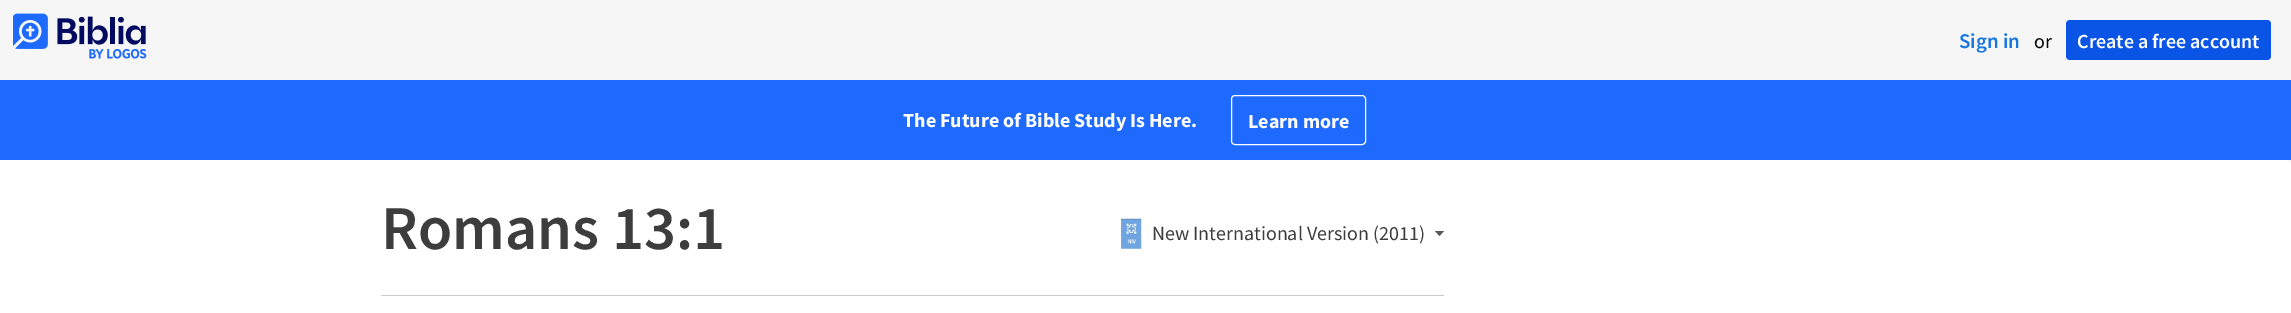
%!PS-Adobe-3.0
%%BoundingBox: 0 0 2291 313
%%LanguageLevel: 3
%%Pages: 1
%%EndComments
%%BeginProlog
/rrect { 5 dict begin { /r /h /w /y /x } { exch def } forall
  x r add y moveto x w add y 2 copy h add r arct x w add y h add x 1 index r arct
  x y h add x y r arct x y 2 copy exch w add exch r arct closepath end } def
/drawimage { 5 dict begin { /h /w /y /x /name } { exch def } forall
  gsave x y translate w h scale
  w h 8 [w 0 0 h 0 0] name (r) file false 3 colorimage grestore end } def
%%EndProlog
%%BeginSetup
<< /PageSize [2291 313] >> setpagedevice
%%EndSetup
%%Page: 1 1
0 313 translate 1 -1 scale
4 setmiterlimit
0.965 setgray
0 0 2291 313 rectfill
(images/1.raw) 13 13 134 46 drawimage
0.039 0.333 0.902 setrgbcolor
2066 20 205 40 4 rrect fill
0.118 0.416 0.996 setrgbcolor
0 80 2291 80 rectfill
1 setgray
1231.5 95.5 134 49 3.5 rrect stroke
-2 160 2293 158 5 rrect fill
0.8 setgray
381 295 1063 1 rectfill
(images/2.raw) 1121 218 21 31 drawimage
0.345 setgray
newpath 1439.5 236 moveto 1444 231 lineto 1435 231 lineto closepath eofill
/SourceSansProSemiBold-SemiBold [21 0 0 -21 0 0] selectfont
0.098 0.467 0.871 setrgbcolor
1959 48 moveto (Sign in) show
/SourceSansPro-Regular [20 0 0 -20 0 0] selectfont
0 setgray
2034 48 moveto (or) show
/SourceSansProSemiBold-SemiBold [20 0 0 -20 0 0] selectfont
1 setgray
2077 48 moveto (Create a free account) show
/SourceSansPro-Bold [20 0 0 -20 0 0] selectfont
903 127 moveto (The Future of Bible Study Is Here.) show
1248 128 moveto (Learn more) show
/SourceSansProSemiBold-SemiBold [62.5 0 0 -62.5 0 0] selectfont
0.239 setgray
381 249 moveto (Romans 13:1) show
/SourceSansPro-Regular [20 0 0 -20 0 0] selectfont
1152 240 moveto (New International Version \(2011\)) show
showpage
%%EOF
